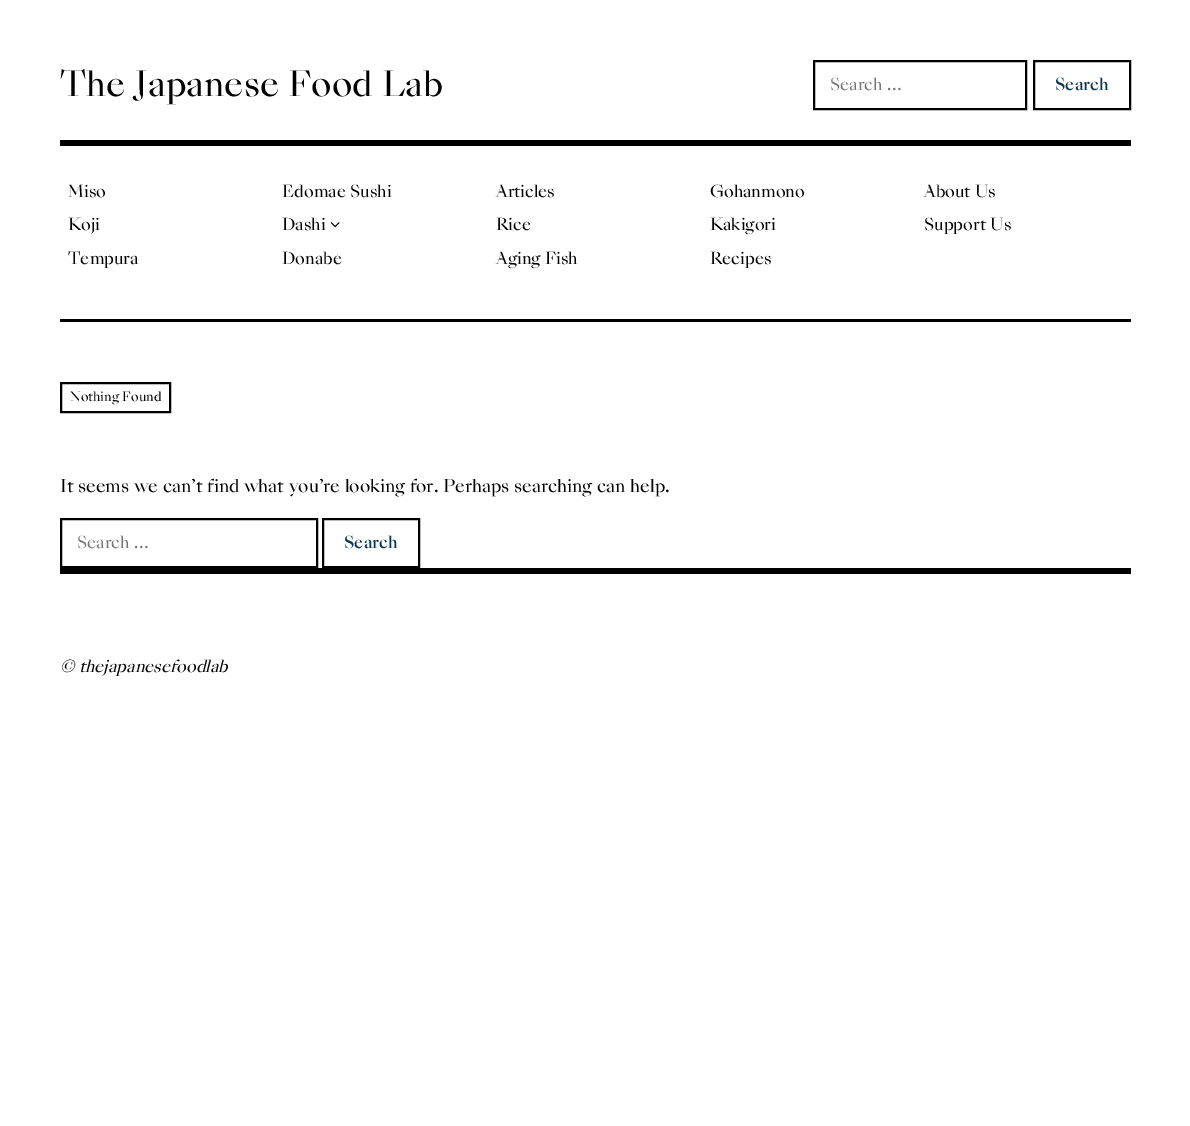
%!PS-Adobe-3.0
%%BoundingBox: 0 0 1190 1126
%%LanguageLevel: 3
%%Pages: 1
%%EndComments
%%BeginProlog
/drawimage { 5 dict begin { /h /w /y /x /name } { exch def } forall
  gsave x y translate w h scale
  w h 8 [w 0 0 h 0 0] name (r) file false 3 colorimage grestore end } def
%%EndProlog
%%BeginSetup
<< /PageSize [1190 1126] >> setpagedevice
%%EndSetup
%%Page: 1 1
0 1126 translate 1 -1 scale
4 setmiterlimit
1 setgray
0 0 1190 1126 rectfill
0 setgray
60 140 1071 6 rectfill
2 setlinewidth
814 61 212 48 rectstroke
1034 61 96 48 rectstroke
(images/1.raw) 330 222 10 6 drawimage
60 319 1071 3 rectfill
61 383 109 29 rectstroke
61 519 256 48 rectstroke
323 519 96 48 rectstroke
60 568 1071 6 rectfill
/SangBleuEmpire-Regular [33.6 0 0 -33.6 0 0] selectfont
60 96 moveto (The Japanese Food Lab) show
/SangBleuEmpire-Regular [16 0 0 -16 0 0] selectfont
0.459 setgray
830 90 moveto (Search …) show
/SangBleuEmpire-Medium [16 0 0 -16 0 0] selectfont
0.039 0.216 0.31 setrgbcolor
1055 90 moveto (Search) show
/SangBleuEmpire-Regular [16 0 0 -16 0 0] selectfont
0 setgray
68 197 moveto (Miso) show
68 230 moveto (Koji) show
68 264 moveto (Tempura) show
282 197 moveto (Edomae Sushi) show
282 230 moveto (Dashi) show
282 264 moveto (Donabe) show
496 197 moveto (Articles) show
496 230 moveto (Rice) show
496 264 moveto (Aging Fish) show
710 197 moveto (Gohanmono) show
710 230 moveto (Kakigori) show
710 264 moveto (Recipes) show
924 197 moveto (About Us) show
924 230 moveto (Support Us) show
/SangBleuEmpire-Regular [12.5 0 0 -12.5 0 0] selectfont
70 401 moveto (Nothing Found) show
/SangBleuEmpire-Regular [17 0 0 -17 0 0] selectfont
60 492 moveto (It seems we can’t find what you’re looking for. Perhaps searching can help.) show
/SangBleuEmpire-Regular [16 0 0 -16 0 0] selectfont
0.459 setgray
77 548 moveto (Search …) show
/SangBleuEmpire-Medium [16 0 0 -16 0 0] selectfont
0.039 0.216 0.31 setrgbcolor
344 548 moveto (Search) show
/SangBleuEmpire-Italic [16 0 0 -16 0 0] selectfont
0 setgray
60 672 moveto (© thejapanesefoodlab) show
showpage
%%EOF
